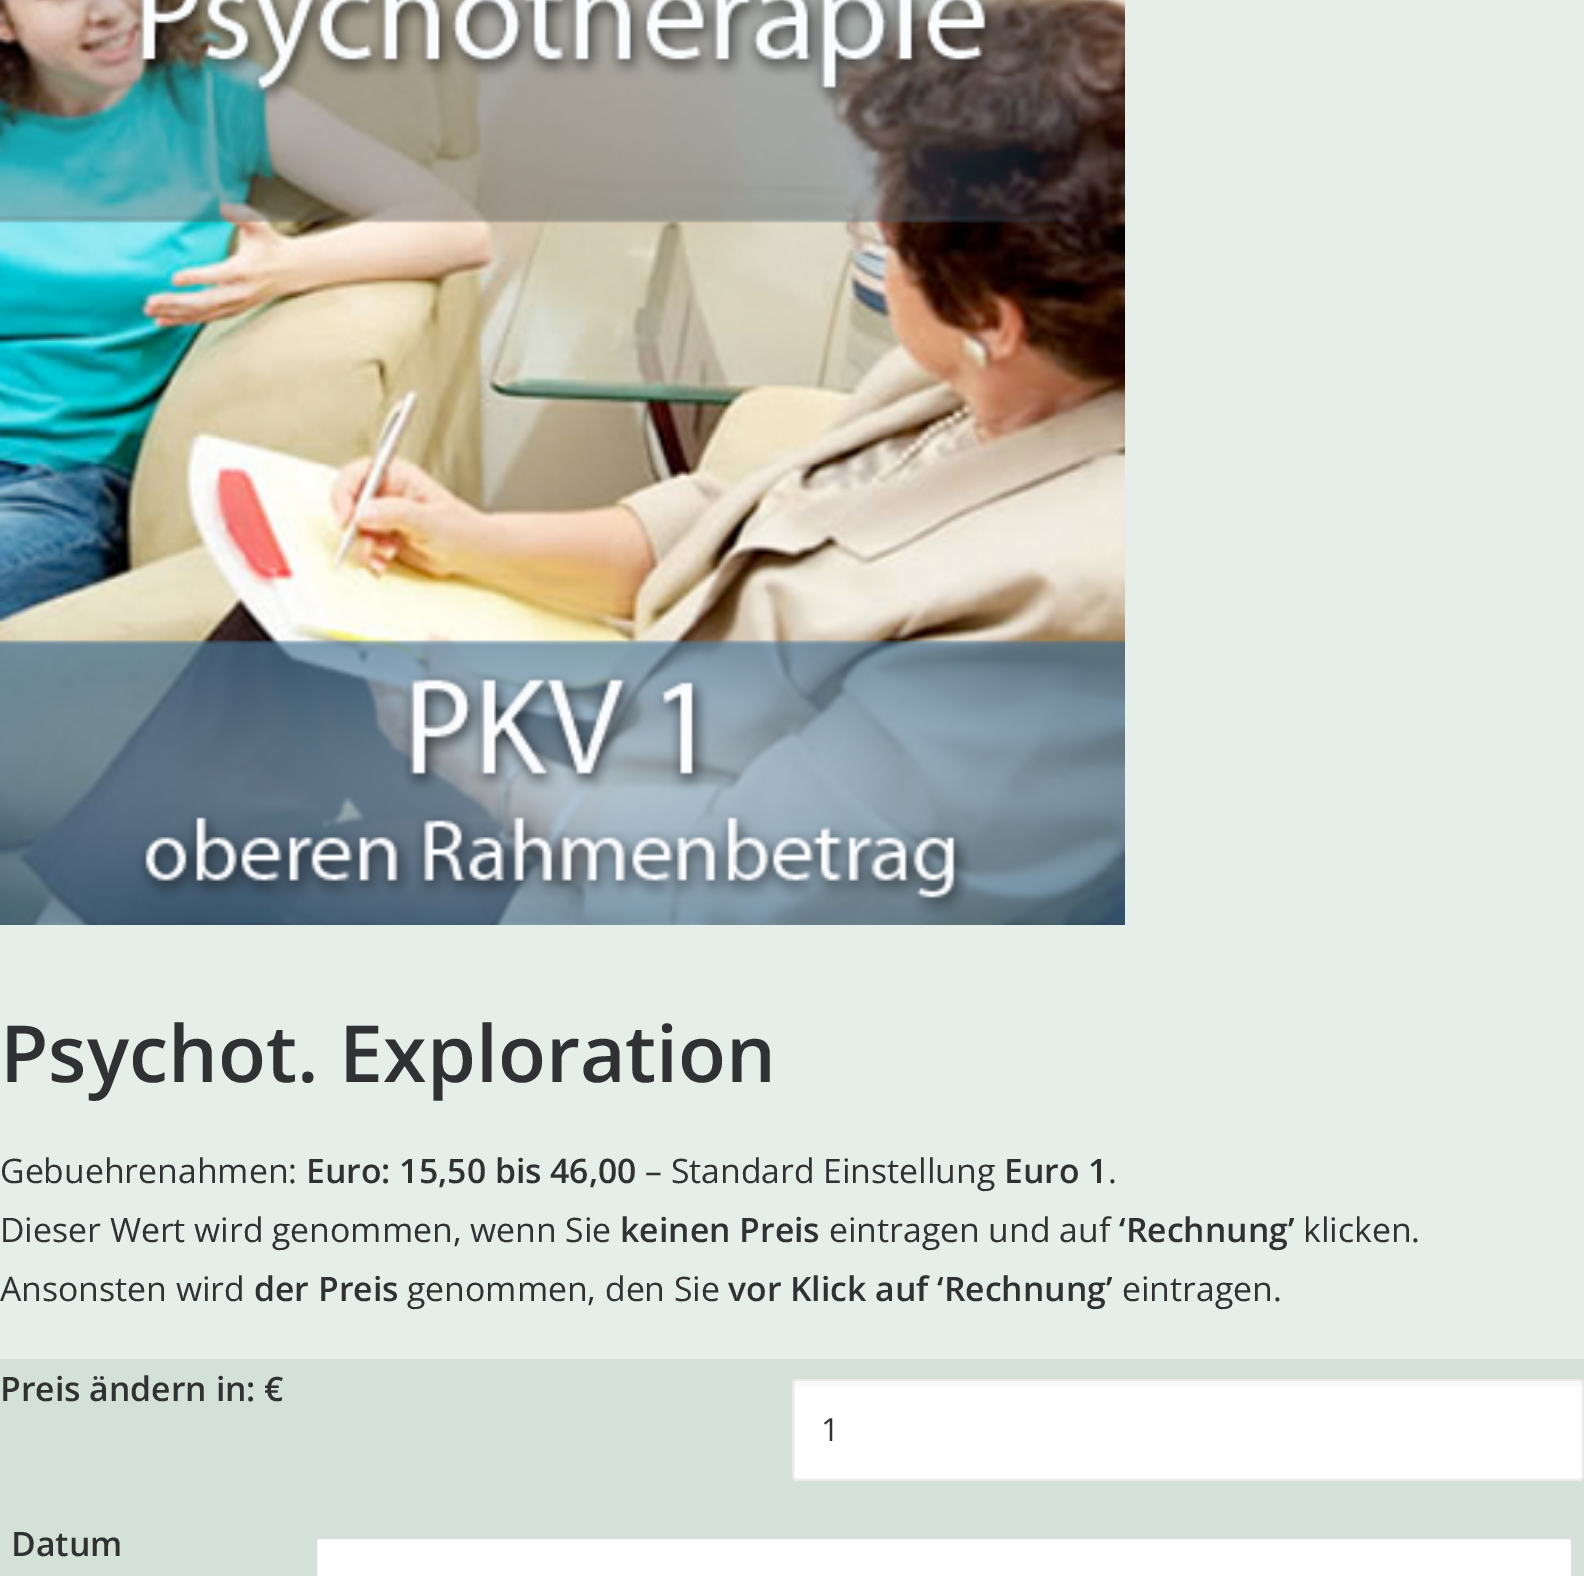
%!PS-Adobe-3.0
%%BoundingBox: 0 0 1584 1576
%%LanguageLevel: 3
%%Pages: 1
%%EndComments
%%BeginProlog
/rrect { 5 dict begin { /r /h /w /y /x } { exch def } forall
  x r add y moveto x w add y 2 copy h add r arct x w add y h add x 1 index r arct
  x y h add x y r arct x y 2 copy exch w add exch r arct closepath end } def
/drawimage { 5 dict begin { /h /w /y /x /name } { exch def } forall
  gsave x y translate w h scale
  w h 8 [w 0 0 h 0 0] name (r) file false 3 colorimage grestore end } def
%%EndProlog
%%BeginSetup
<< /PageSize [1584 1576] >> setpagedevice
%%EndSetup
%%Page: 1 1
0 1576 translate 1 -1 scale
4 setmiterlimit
0.902 0.933 0.914 setrgbcolor
0 0 1584 1576 rectfill
(images/1.raw) 0 0 1125 925 drawimage
0.831 0.882 0.847 setrgbcolor
0 1359 1584 217 rectfill
1 setgray
792 1379 792 102 5 rrect fill
0.976 setgray
newpath 796 1386 moveto 1580 1386 lineto 1581 1386 1582 1387 1582 1388 curveto 1582 1384 lineto 1582 1383 1581 1382 1580 1382 curveto 796 1382 lineto 795 1382 794 1383 794 1384 curveto 794 1388 lineto 794 1387 795 1386 796 1386 curveto closepath fill
0.918 setgray
2 setlinewidth
793 1380 790 100 4 rrect stroke
1 setgray
newpath 316 1538 moveto 1572 1538 lineto 1572 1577 lineto 316 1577 lineto closepath gsave fill grestore
0.867 setgray
stroke
/OpenSans-SemiBold [78.75 0 0 -78.75 0 0] selectfont
0.188 0.192 0.2 setrgbcolor
0 1082 moveto (Psychot. Exploration) show
/OpenSans-Regular [33.75 0 0 -33.75 0 0] selectfont
0 1183 moveto (Gebuehrenahmen:) show
/OpenSans-SemiBold [33.75 0 0 -33.75 0 0] selectfont
306 1183 moveto (Euro: 15,50 bis 46,00) show
/OpenSans-Regular [33.75 0 0 -33.75 0 0] selectfont
645 1183 moveto (– Standard Einstellung) show
/OpenSans-SemiBold [33.75 0 0 -33.75 0 0] selectfont
1004 1183 moveto (Euro 1) show
/OpenSans-Regular [33.75 0 0 -33.75 0 0] selectfont
1108 1183 moveto (.) show
0 1242 moveto (Dieser Wert wird genommen, wenn Sie) show
/OpenSans-SemiBold [33.75 0 0 -33.75 0 0] selectfont
620 1242 moveto (keinen Preis) show
/OpenSans-Regular [33.75 0 0 -33.75 0 0] selectfont
829 1242 moveto (eintragen und auf) show
/OpenSans-SemiBold [33.75 0 0 -33.75 0 0] selectfont
1119 1242 moveto (‘Rechnung’) show
/OpenSans-Regular [33.75 0 0 -33.75 0 0] selectfont
1303 1242 moveto (klicken.) show
0 1301 moveto (Ansonsten wird) show
/OpenSans-SemiBold [33.75 0 0 -33.75 0 0] selectfont
254 1301 moveto (der Preis) show
/OpenSans-Regular [33.75 0 0 -33.75 0 0] selectfont
407 1301 moveto (genommen, den Sie) show
/OpenSans-SemiBold [33.75 0 0 -33.75 0 0] selectfont
728 1301 moveto (vor Klick auf ‘Rechnung’) show
/OpenSans-Regular [33.75 0 0 -33.75 0 0] selectfont
1122 1301 moveto (eintragen.) show
/OpenSans-SemiBold [33.75 0 0 -33.75 0 0] selectfont
0 1401 moveto (Preis ändern in: €) show
/OpenSans-Regular [32 0 0 -32 0 0] selectfont
821 1441 moveto (1) show
/OpenSans-SemiBold [33.75 0 0 -33.75 0 0] selectfont
11 1556 moveto (Datum) show
showpage
%%EOF
